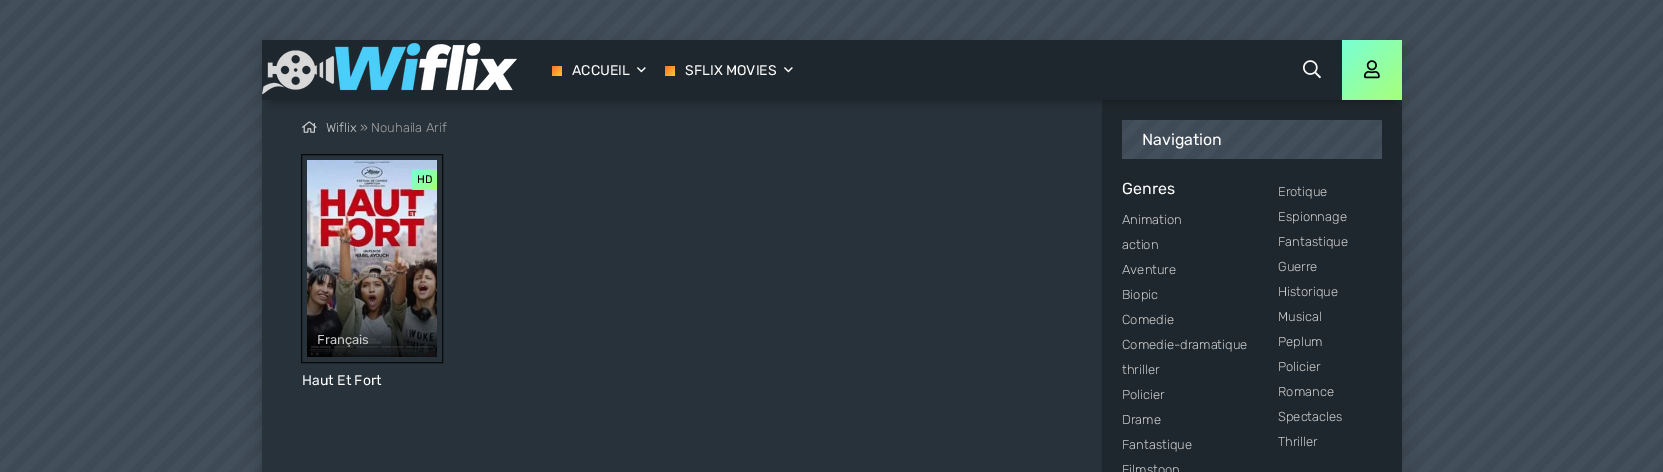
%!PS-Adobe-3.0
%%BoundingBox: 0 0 1663 472
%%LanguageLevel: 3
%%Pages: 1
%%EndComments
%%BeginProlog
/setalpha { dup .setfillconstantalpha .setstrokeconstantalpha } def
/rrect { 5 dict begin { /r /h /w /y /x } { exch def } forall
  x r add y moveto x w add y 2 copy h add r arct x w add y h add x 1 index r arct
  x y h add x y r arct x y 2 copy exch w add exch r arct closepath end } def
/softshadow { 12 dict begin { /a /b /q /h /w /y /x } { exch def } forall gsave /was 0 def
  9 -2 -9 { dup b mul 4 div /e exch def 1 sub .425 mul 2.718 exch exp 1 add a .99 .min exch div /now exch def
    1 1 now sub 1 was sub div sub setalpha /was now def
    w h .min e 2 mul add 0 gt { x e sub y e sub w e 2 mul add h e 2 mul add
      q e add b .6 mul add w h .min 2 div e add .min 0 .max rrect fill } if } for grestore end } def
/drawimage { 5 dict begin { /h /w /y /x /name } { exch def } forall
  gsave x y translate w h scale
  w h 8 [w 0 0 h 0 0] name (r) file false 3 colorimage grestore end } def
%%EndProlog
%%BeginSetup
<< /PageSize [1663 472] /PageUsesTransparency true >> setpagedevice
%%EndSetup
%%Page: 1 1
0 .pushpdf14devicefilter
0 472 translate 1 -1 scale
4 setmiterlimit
1 setgray
0 0 1663 472 rectfill
(images/1.raw) 0 0 1663 472 drawimage
0 setgray
262 50 1140 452 0 10 0.2 softshadow
0.153 0.196 0.231 setrgbcolor
262 100 840 372 rectfill
0.118 0.153 0.18 setrgbcolor
1102 100 300 372 rectfill
0 setgray
272 60 1120 40 0 5 0.4 softshadow
0.118 0.153 0.18 setrgbcolor
262 40 1080 60 rectfill
(images/2.raw) 262 42 255 53 drawimage
gsave 552 66 10 10 3 rrect clip newpath
<< /ShadingType 2 /ColorSpace /DeviceRGB /Coords [552 66 562 76] /Extend [true true] /Function << /FunctionType 2 /Domain [0 1] /C0 [0.953 0.451 0.208] /C1 [0.992 0.784 0.188] /N 1 >> >> shfill grestore
(images/3.raw) 637 67 9 6 drawimage
gsave 665 66 10 10 3 rrect clip newpath
<< /ShadingType 2 /ColorSpace /DeviceRGB /Coords [665 66 675 76] /Extend [true true] /Function << /FunctionType 2 /Domain [0 1] /C0 [0.953 0.451 0.208] /C1 [0.992 0.784 0.188] /N 1 >> >> shfill grestore
(images/3.raw) 784 67 9 6 drawimage
(images/4.raw) 1303 60 18 19 drawimage
gsave newpath 1342 40 moveto 1402 40 lineto 1402 100 lineto 1342 100 lineto closepath clip newpath
<< /ShadingType 2 /ColorSpace /DeviceRGB /Coords [1342 40 1402 100] /Extend [true true] /Function << /FunctionType 2 /Domain [0 1] /C0 [0.471 1 0.839] /C1 [0.659 1 0.471] /N 1 >> >> shfill grestore
(images/5.raw) 1364 60 16 19 drawimage
(images/6.raw) 302 121 15 12 drawimage
0.031 0.039 0.047 setrgbcolor
301.5 154.5 141 208 rectstroke
(images/7.raw) 307 160 130 197 drawimage
gsave newpath 415 170 moveto 437 170 lineto 437 190 lineto 415 190 lineto 413.5 190 412 188.5 412 187 curveto 412 173 lineto 412 171.5 413.5 170 415 170 curveto closepath clip newpath
<< /ShadingType 2 /ColorSpace /DeviceRGB /Coords [413 169 436 191] /Extend [true true] /Function << /FunctionType 2 /Domain [0 1] /C0 [0.471 1 0.839] /C1 [0.659 1 0.471] /N 1 >> >> shfill grestore
(images/8.raw) 1122 120 260 39 drawimage
/Rubik-Regular [14 0 0 -14 0 0] selectfont
1 setgray
572 75 moveto (ACCUEIL) show
685 75 moveto (SFLIX MOVIES) show
/Rubik-Light [13 0 0 -13 0 0] selectfont
0.8 setgray
326 132 moveto (Wiflix) show
0.639 setgray
360 132 moveto (» Nouhaila Arif) show
/Rubik-Regular [11 0 0 -11 0 0] selectfont
0 setgray
417 183 moveto (HD) show
/Rubik-Regular [13 0 0 -13 0 0] selectfont
0.8 setgray
317 344 moveto (Français) show
/Rubik-Regular [14 0 0 -14 0 0] selectfont
1 setgray
302 385 moveto (Haut Et Fort) show
/Rubik-Regular [16 0 0 -16 0 0] selectfont
1142 145 moveto (Navigation) show
1122 194 moveto (Genres) show
/Rubik-Light [13 0 0 -13 0 0] selectfont
0.8 setgray
1122 224 moveto (Animation) show
1122 249 moveto (action) show
1122 274 moveto (Aventure) show
1122 299 moveto (Biopic) show
1122 324 moveto (Comedie) show
1122 349 moveto (Comedie-dramatique) show
1122 374 moveto (thriller) show
1122 399 moveto (Policier) show
1122 424 moveto (Drame) show
1122 449 moveto (Fantastique) show
1122 474 moveto (Filmstoon) show
1278 196 moveto (Erotique) show
1278 221 moveto (Espionnage) show
1278 246 moveto (Fantastique) show
1278 271 moveto (Guerre) show
1278 296 moveto (Historique) show
1278 321 moveto (Musical) show
1278 346 moveto (Peplum) show
1278 371 moveto (Policier) show
1278 396 moveto (Romance) show
1278 421 moveto (Spectacles) show
1278 446 moveto (Thriller) show
.poppdf14devicefilter showpage
%%EOF
